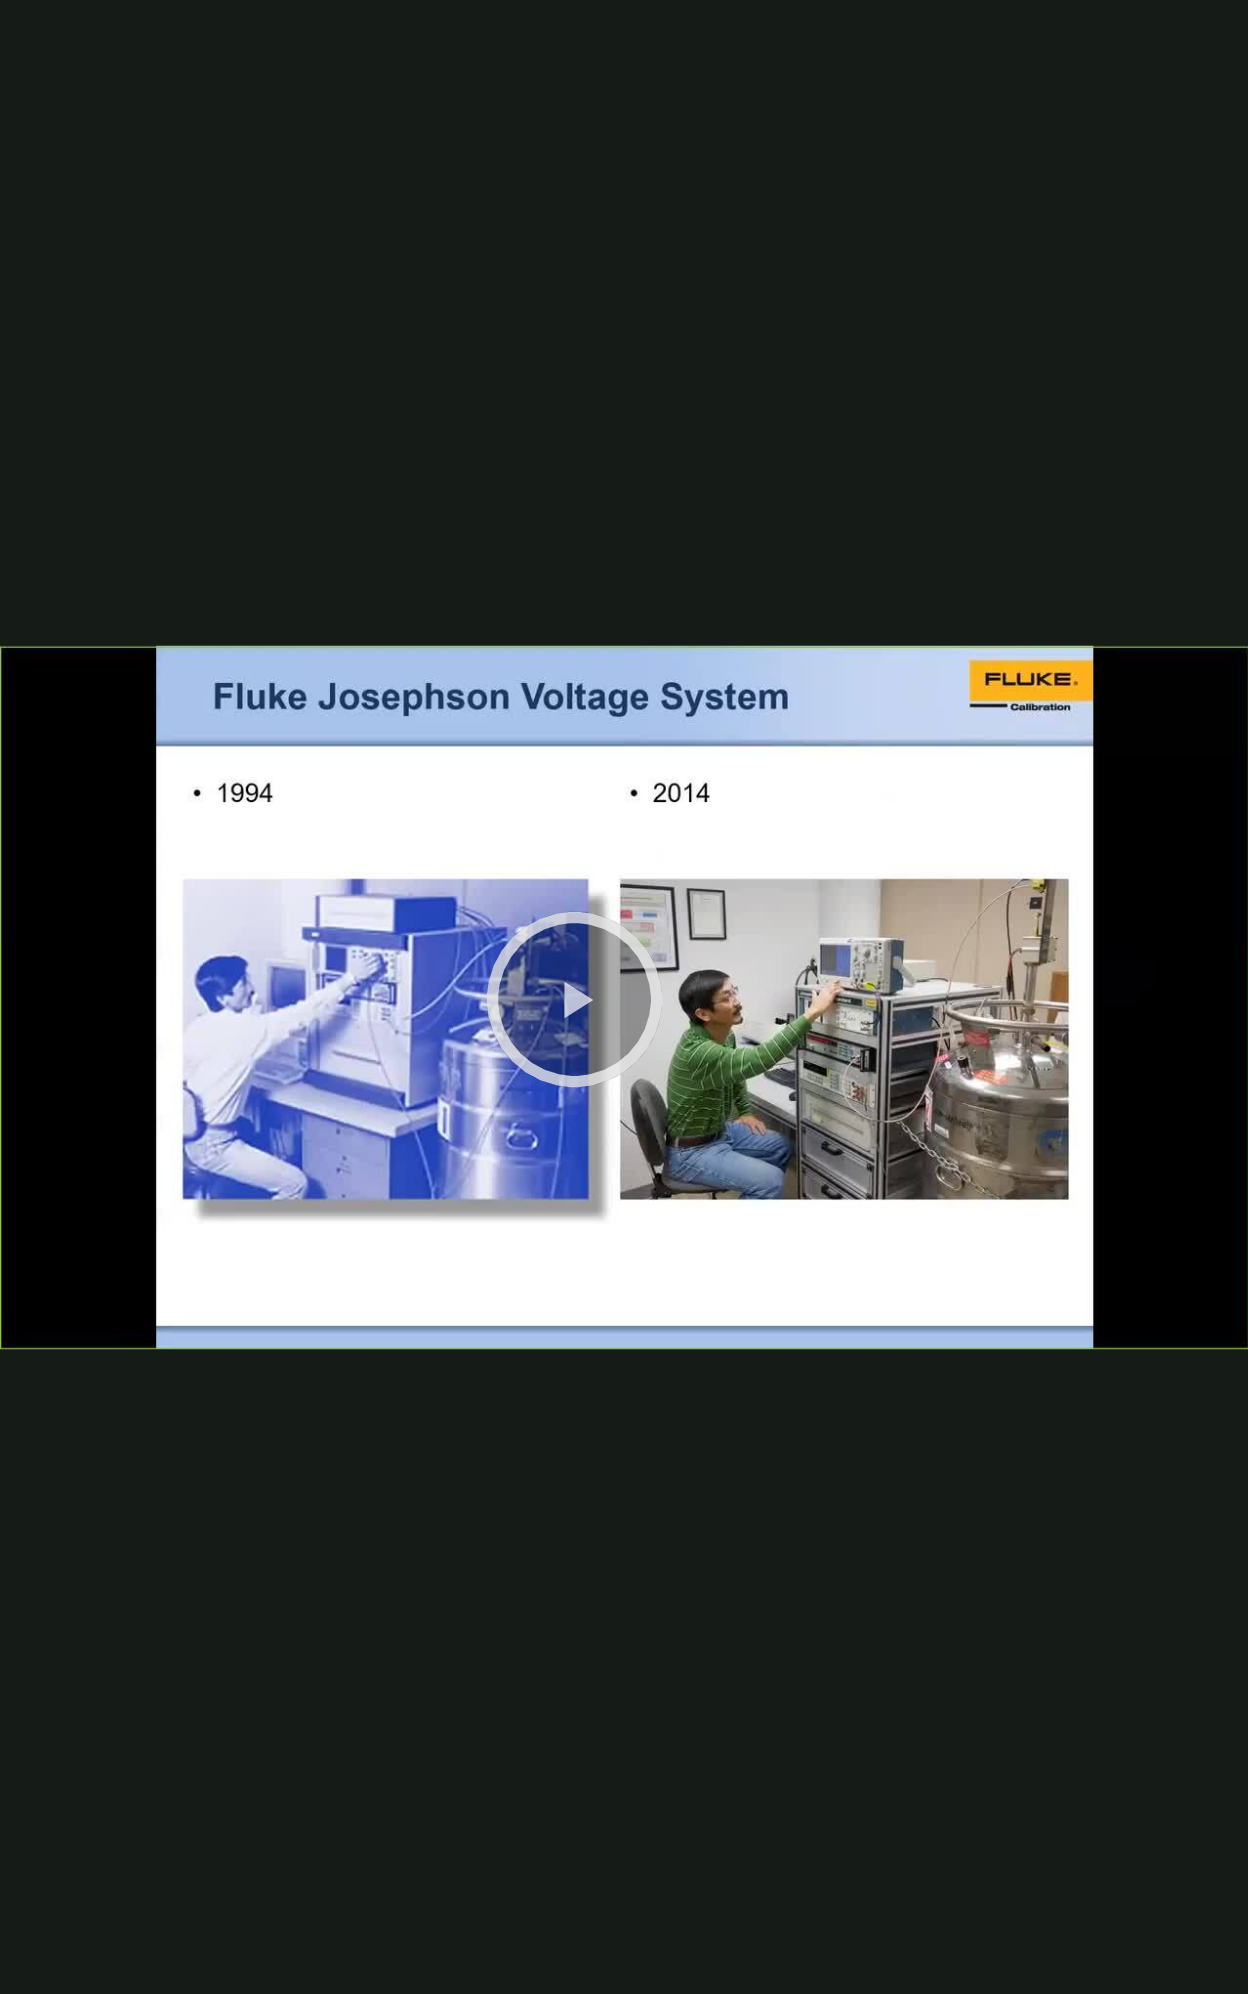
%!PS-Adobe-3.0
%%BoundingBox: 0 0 1248 1994
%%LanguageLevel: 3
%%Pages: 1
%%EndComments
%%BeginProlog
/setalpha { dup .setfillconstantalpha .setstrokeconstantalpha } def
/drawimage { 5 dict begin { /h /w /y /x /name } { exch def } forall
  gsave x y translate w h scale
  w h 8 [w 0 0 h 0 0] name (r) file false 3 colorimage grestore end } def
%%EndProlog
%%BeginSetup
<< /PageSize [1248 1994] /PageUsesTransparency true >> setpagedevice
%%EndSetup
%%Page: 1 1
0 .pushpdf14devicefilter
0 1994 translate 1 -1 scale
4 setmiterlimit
0.082 0.106 0.09 setrgbcolor
0 0 1248 1994 rectfill
(images/1.raw) 0 645 1248 705 drawimage
0.32 setalpha
0 setgray
newpath 574.5 999.5 87.5 0 360 arc closepath fill
0.7 setalpha
1 setgray
11 setlinewidth
newpath 574.5 999.5 82 0 360 arc closepath stroke
newpath 564.5 982 moveto 564.5 1018 lineto 593 1000 lineto closepath fill
.poppdf14devicefilter showpage
%%EOF
